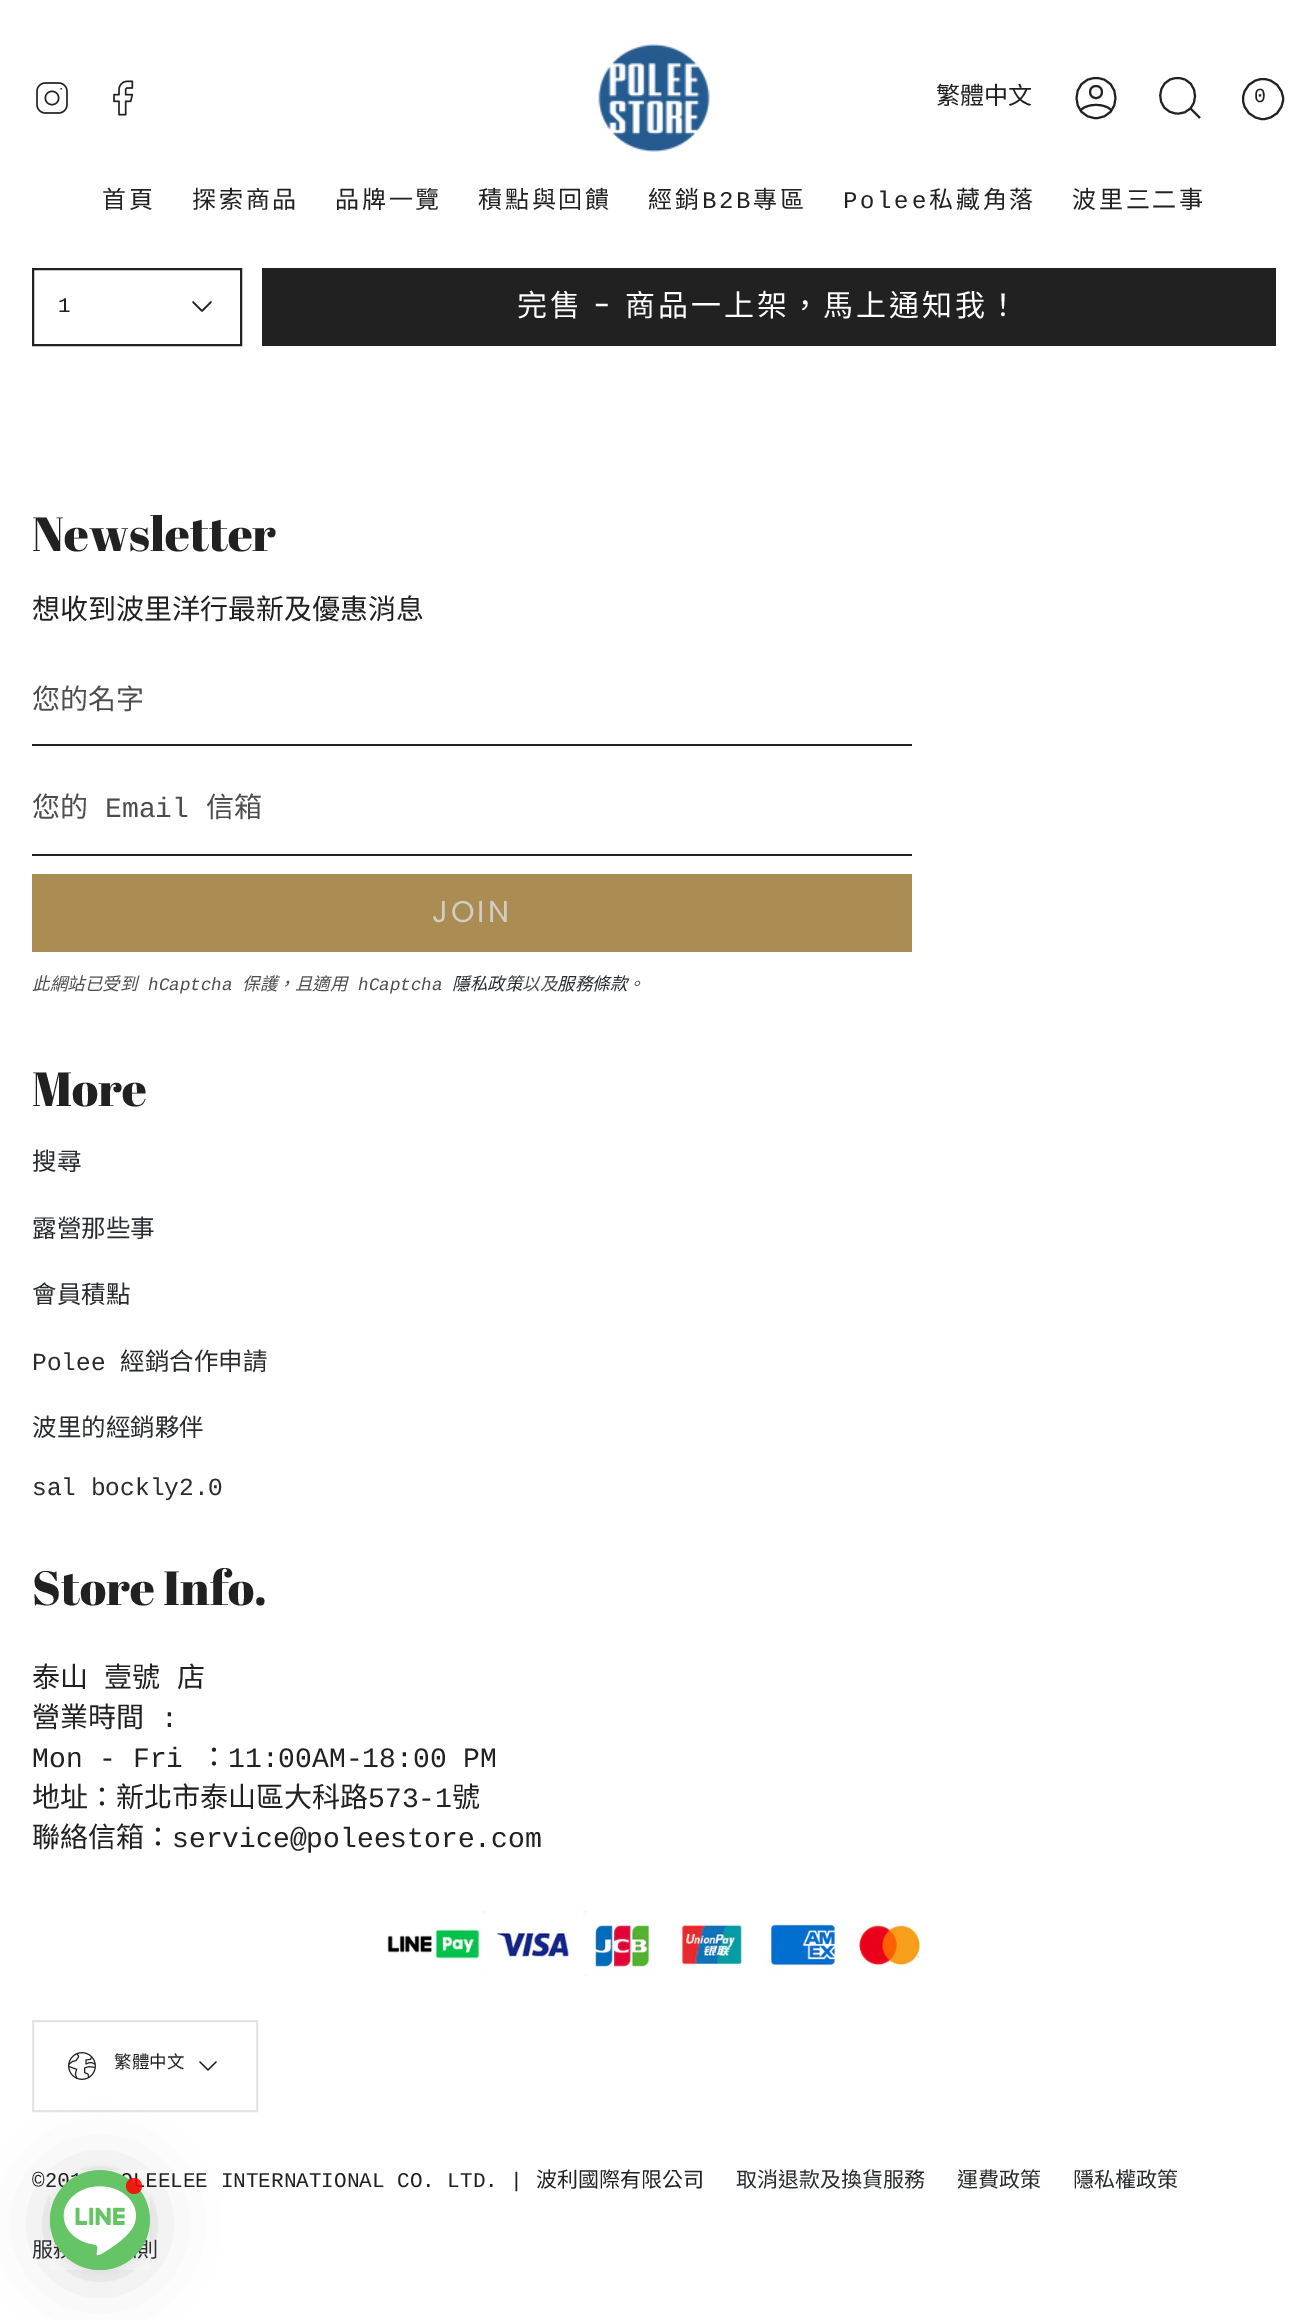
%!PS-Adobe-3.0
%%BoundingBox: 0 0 1308 2320
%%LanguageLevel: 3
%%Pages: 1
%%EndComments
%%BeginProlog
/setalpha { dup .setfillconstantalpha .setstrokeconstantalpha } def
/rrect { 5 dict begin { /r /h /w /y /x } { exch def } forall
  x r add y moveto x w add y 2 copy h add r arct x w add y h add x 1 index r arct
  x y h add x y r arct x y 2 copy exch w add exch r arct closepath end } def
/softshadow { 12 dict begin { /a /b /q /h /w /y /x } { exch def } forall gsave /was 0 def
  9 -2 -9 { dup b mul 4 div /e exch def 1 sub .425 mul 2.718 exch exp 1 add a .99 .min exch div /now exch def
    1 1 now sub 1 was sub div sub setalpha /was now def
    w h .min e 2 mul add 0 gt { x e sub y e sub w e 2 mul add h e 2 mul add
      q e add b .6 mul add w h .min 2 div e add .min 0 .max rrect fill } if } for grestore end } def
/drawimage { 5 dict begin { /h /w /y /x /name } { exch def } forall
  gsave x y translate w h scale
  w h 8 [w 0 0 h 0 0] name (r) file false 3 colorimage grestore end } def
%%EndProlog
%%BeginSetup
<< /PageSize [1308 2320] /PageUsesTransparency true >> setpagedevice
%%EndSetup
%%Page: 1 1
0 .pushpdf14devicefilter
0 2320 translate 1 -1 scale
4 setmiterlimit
1 setgray
0 0 1308 2320 rectfill
(images/1.raw) 36 82 32 32 drawimage
(images/2.raw) 113 80 21 36 drawimage
(images/3.raw) 598 44 112 108 drawimage
0.129 setgray
2 setlinewidth
1 setlinecap
1 setlinejoin
newpath 1096 78 moveto 1070 78 1070 118 1096 118 curveto 1122 118 1122 78 1096 78 curveto closepath 1080.5 110.5 moveto 1086.5 103 1105.5 103 1111.5 110.5 curveto 1096 98 moveto 1104 98 1104 86 1096 86 curveto 1088 86 1088 98 1096 98 curveto closepath stroke
0 setlinecap
0 setlinejoin
newpath 1177.5 78 moveto 1201 78 1201 114.5 1177 113.5 curveto 1154 112.5 1155 78 1177.5 78 curveto closepath 1190 108 moveto 1200 118 lineto stroke
newpath 1263 99 20 0 360 arc closepath stroke
33 269 208 76 rectstroke
1.5 setlinewidth
1 setlinecap
1 setlinejoin
newpath 193 302 moveto 202 311 lineto 211 302 lineto stroke
262 268 1014 78 rectfill
32 744 880 2 rectfill
32 854 880 2 rectfill
0.671 0.549 0.322 setrgbcolor
32 874 880 78 rectfill
(images/4.raw) 387 1911 535 66 drawimage
0.894 setgray
2 setlinewidth
0 setlinecap
0 setlinejoin
33 2021 224 90 rectstroke
(images/5.raw) 68 2052 28 28 drawimage
0.129 setgray
1.3 setlinewidth
1 setlinecap
1 setlinejoin
newpath 200 2062 moveto 208 2070 lineto 216 2062 lineto stroke
0 setgray
50 2174 100 100 50 32 0.16 softshadow
50 2172 100 100 50 6 0.06 softshadow
/NotoSansCJKTC-Regular [24 0 0 -24 0 0] selectfont
0.129 setgray
936 104 moveto (繁體中文) show
/LiberationMono-Regular [20 0 0 -20 0 0] selectfont
1254 102 moveto 2.75 0 (0) ashow
/NotoSansCJKTC-Regular [24 0 0 -24 0 0] selectfont
102 208 moveto 2.75 0 (首頁) ashow
192 208 moveto 2.75 0 (探索商品) ashow
335 208 moveto 2.75 0 (品牌一覽) ashow
478 208 moveto 2.75 0 (積點與回饋) ashow
648 208 moveto 2.75 0 (經銷) ashow
/LiberationMono-Regular [24 0 0 -24 0 0] selectfont
702 208 moveto 2.75 0 (B2B) ashow
/NotoSansCJKTC-Regular [24 0 0 -24 0 0] selectfont
753 208 moveto 2.75 0 (專區) ashow
/LiberationMono-Regular [24 0 0 -24 0 0] selectfont
843 208 moveto 2.75 0 (Polee) ashow
/NotoSansCJKTC-Regular [24 0 0 -24 0 0] selectfont
929 208 moveto 2.75 0 (私藏角落) ashow
1072 208 moveto 2.75 0 (波里三二事) ashow
/LiberationMono-Regular [21 0 0 -21 0 0] selectfont
58 312 moveto (1) show
/NotoSansCJKTC-Regular [30 0 0 -30 0 0] selectfont
1 setgray
517 316 moveto 3 0 (完售) ashow
/Poppins-Regular [30 0 0 -30 0 0] selectfont
594 316 moveto 3 0 (-) ashow
/NotoSansCJKTC-Regular [30 0 0 -30 0 0] selectfont
625 316 moveto 3 0 (商品一上架，馬上通知我！) ashow
/AbrilFatface-Regular [48 0 0 -48 0 0] selectfont
0.129 setgray
32 551 moveto (Newsletter) show
/NotoSansCJKTC-Regular [28 0 0 -28 0 0] selectfont
32 619 moveto (想收到波里洋行最新及優惠消息) show
0.302 setgray
32 709 moveto (您的名字) show
32 817 moveto (您的) show
/LiberationMono-Regular [28 0 0 -28 0 0] selectfont
105 817 moveto (Email) show
/NotoSansCJKTC-Regular [28 0 0 -28 0 0] selectfont
206 817 moveto (信箱) show
/Poppins-Regular [30 0 0 -30 0 0] selectfont
0.82 0.804 0.769 setrgbcolor
432 922 moveto 3 0 (JOIN) ashow
/NotoSansCJKTC-Italic [17.5 0 0 -17.5 0 0] selectfont
0.302 setgray
32 990 moveto (此網站已受到) show
/LiberationMono-Italic [17.5 0 0 -17.5 0 0] selectfont
148 990 moveto (hCaptcha) show
/NotoSansCJKTC-Italic [17.5 0 0 -17.5 0 0] selectfont
242 990 moveto (保護，且適用) show
/LiberationMono-Italic [17.5 0 0 -17.5 0 0] selectfont
358 990 moveto (hCaptcha) show
/NotoSansCJKTC-Italic [17.5 0 0 -17.5 0 0] selectfont
0.157 0.173 0.18 setrgbcolor
452 990 moveto (隱私政策) show
0.302 setgray
522 990 moveto (以及) show
0.157 0.173 0.18 setrgbcolor
557 990 moveto (服務條款) show
0.302 setgray
627 990 moveto (。) show
/AbrilFatface-Regular [48 0 0 -48 0 0] selectfont
0.129 setgray
32 1106 moveto (More) show
/NotoSansCJKTC-Regular [24.5 0 0 -24.5 0 0] selectfont
0.157 0.173 0.18 setrgbcolor
32 1170 moveto (搜尋) show
32 1237 moveto (露營那些事) show
32 1303 moveto (會員積點) show
/LiberationMono-Regular [24.5 0 0 -24.5 0 0] selectfont
32 1370 moveto (Polee) show
/NotoSansCJKTC-Regular [24.5 0 0 -24.5 0 0] selectfont
120 1370 moveto (經銷合作申請) show
32 1436 moveto (波里的經銷夥伴) show
/LiberationMono-Regular [24.5 0 0 -24.5 0 0] selectfont
32 1495 moveto (sal bockly2.0) show
/AbrilFatface-Regular [48 0 0 -48 0 0] selectfont
0.129 setgray
32 1605 moveto (Store Info.) show
/NotoSansCJKTC-Regular [28 0 0 -28 0 0] selectfont
32 1687 moveto 10 0 32 (泰山 壹號 店) widthshow
32 1727 moveto (營業時間) show
/LiberationMono-Regular [28 0 0 -28 0 0] selectfont
161 1727 moveto (:) show
32 1767 moveto (Mon - Fri) show
/NotoSansCJKTC-Regular [28 0 0 -28 0 0] selectfont
200 1767 moveto (：) show
/LiberationMono-Regular [28 0 0 -28 0 0] selectfont
228 1767 moveto (11:00AM-18:00 PM) show
/NotoSansCJKTC-Regular [28 0 0 -28 0 0] selectfont
32 1807 moveto (地址：新北市泰山區大科路) show
/LiberationMono-Regular [28 0 0 -28 0 0] selectfont
368 1807 moveto (573-1) show
/NotoSansCJKTC-Regular [28 0 0 -28 0 0] selectfont
452 1807 moveto (號) show
32 1847 moveto (聯絡信箱：) show
/LiberationMono-Regular [28 0 0 -28 0 0] selectfont
172 1847 moveto (service@poleestore.com) show
/NotoSansCJKTC-Regular [17.5 0 0 -17.5 0 0] selectfont
114 2068 moveto (繁體中文) show
/LiberationMono-Regular [21 0 0 -21 0 0] selectfont
32 2187 moveto (©2) show
145 2187 moveto (EELEE INTERNATIONAL CO. LTD. |) show
/NotoSansCJKTC-Regular [21 0 0 -21 0 0] selectfont
536 2187 moveto (波利國際有限公司) show
0.157 0.173 0.18 setrgbcolor
736 2187 moveto (取消退款及換貨服務) show
957 2187 moveto (運費政策) show
1073 2187 moveto (隱私權政策) show
32 2257 moveto (服) show
137 2257 moveto (則) show
0.392 0.769 0.4 setrgbcolor
newpath 100 2220 50 0 360 arc closepath fill
(images/6.raw) 50 2170 100 100 drawimage
0.85 setalpha
1 0 0 setrgbcolor
newpath 134 2186 8 0 360 arc closepath fill
.poppdf14devicefilter showpage
%%EOF
